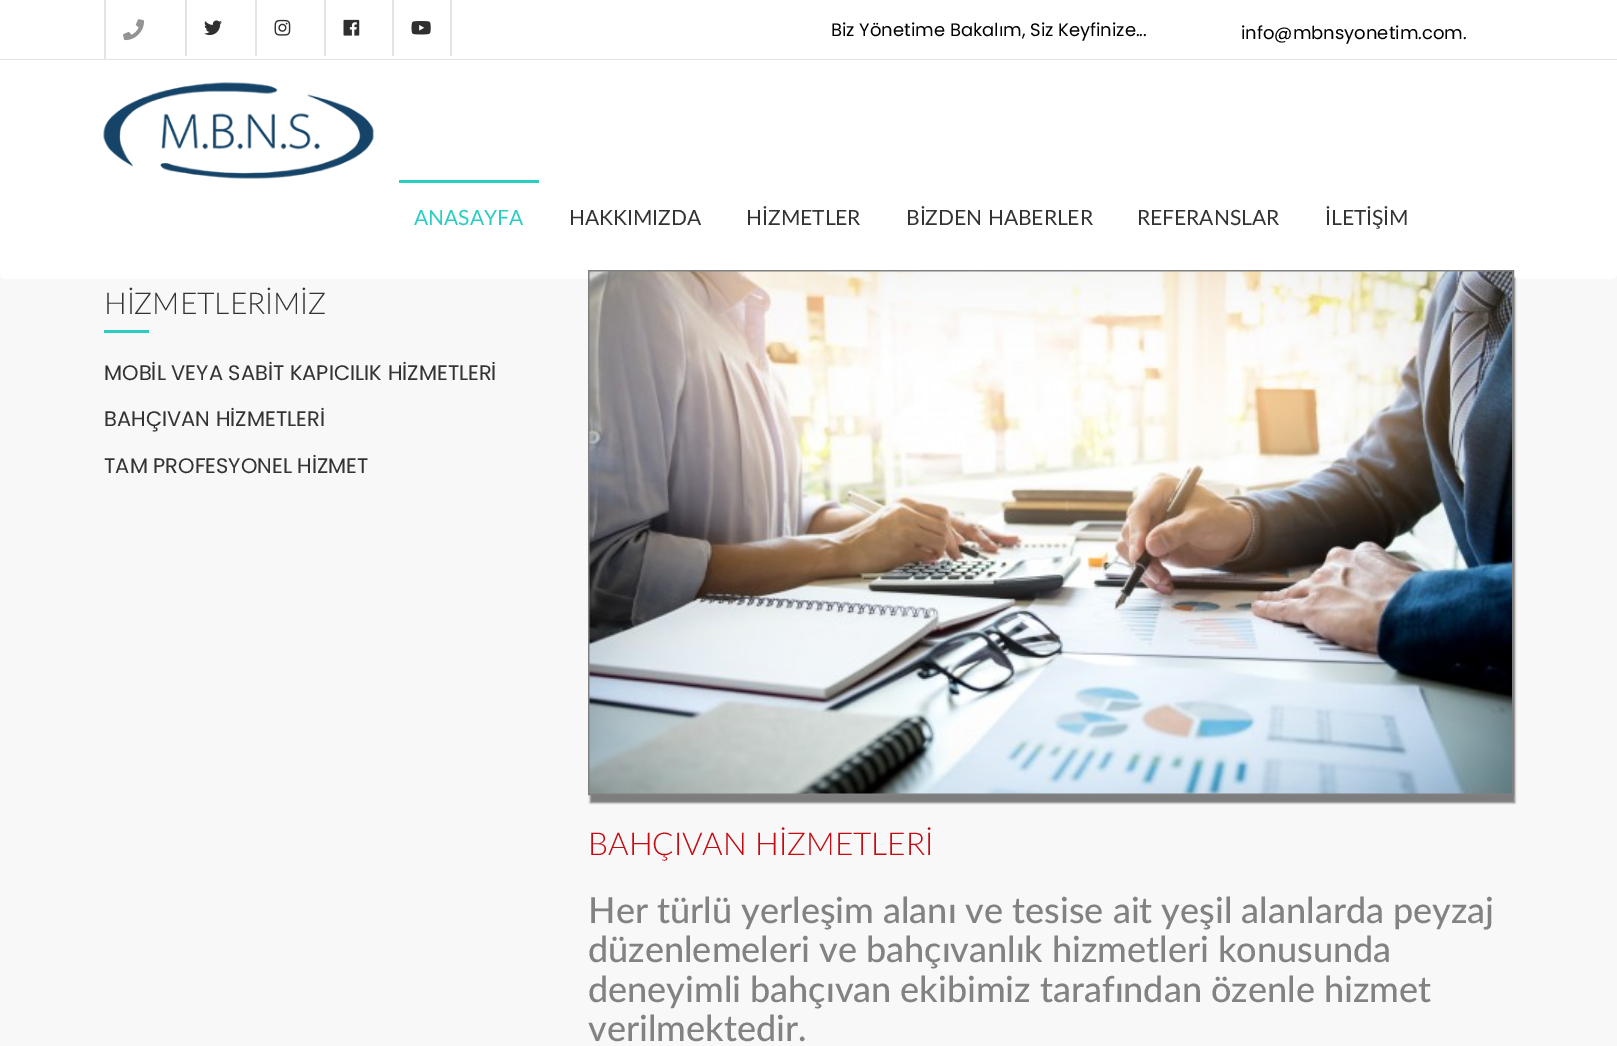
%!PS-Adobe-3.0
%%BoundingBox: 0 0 1617 1046
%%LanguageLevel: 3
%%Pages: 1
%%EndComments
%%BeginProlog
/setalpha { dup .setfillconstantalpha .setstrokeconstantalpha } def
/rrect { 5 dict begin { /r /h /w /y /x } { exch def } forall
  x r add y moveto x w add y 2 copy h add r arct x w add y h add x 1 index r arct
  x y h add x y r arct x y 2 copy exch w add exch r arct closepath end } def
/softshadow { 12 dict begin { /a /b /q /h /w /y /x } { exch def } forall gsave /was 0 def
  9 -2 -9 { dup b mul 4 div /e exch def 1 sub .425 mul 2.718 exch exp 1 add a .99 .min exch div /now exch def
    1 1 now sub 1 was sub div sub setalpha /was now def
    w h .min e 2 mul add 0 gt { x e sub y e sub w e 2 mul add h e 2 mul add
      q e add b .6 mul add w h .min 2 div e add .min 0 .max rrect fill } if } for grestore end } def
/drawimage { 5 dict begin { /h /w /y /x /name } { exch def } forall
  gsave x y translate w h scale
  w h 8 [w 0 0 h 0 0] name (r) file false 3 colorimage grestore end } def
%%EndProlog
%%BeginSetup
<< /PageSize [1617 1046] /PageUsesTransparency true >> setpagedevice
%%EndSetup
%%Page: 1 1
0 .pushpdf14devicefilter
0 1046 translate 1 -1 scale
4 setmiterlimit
0.973 setgray
0 0 1617 1046 rectfill
1 setgray
0 0 1617 59 rectfill
0.894 setgray
0 59 1617 1 rectfill
104 0 2 59 rectfill
(images/1.raw) 123 19 21 22 drawimage
185 0 2 56 rectfill
(images/2.raw) 204 20 18 16 drawimage
255 0 2 56 rectfill
(images/3.raw) 274 19 17 17 drawimage
324 0 2 56 rectfill
(images/4.raw) 343 19 17 17 drawimage
450 0 2 56 rectfill
392 0 2 56 rectfill
(images/5.raw) 411 21 20 14 drawimage
1 setgray
0 60 1617 6 rectfill
0 60 1617 219 6 rrect fill
(images/6.raw) 103 82 271 97 drawimage
0.169 0.804 0.757 setrgbcolor
399 180 140 3 rectfill
104 330 45 3 rectfill
0 setgray
590 278 925 525 0 1 0.5 softshadow
0.502 setgray
2 setlinewidth
589 271 924 523 rectstroke
(images/7.raw) 589 271 923 523 drawimage
/Poppins-Regular [18 0 0 -18 0 0] selectfont
0 setgray
831 36 moveto (Biz Yönetime Bakalım, Siz Keyfinize...) show
1241 39 moveto (info@mbnsyonetim.com.) show
/Lato-Regular [21 0 0 -21 0 0] selectfont
0.169 0.804 0.757 setrgbcolor
414 225 moveto (ANASAYFA) show
0.2 setgray
569 225 moveto (HAKKIMIZDA) show
746 225 moveto (HİZMETLER) show
906 225 moveto (BİZDEN HABERLER) show
1137 225 moveto (REFERANSLAR) show
1325 225 moveto (İLETİŞİM) show
/Lato-Light [30 0 0 -30 0 0] selectfont
104 314 moveto (HİZMETLERİMİZ) show
/Poppins-Regular [21 0 0 -21 0 0] selectfont
104 380 moveto (MOBİL VEYA SABİT KAPICILIK HİZMETLERİ) show
104 426 moveto (BAHÇIVAN HİZMETLERİ) show
104 473 moveto (TAM PROFESYONEL HİZMET) show
/Lato-Light [31.5 0 0 -31.5 0 0] selectfont
0.769 0.043 0.075 setrgbcolor
588 855 moveto (BAHÇIVAN HİZMETLERİ) show
/Lato-Medium [36 0 0 -36 0 0] selectfont
0.514 0.51 0.51 setrgbcolor
588 923 moveto (Her türlü yerleşim alanı ve tesise ait yeşil alanlarda peyzaj) show
588 962 moveto (düzenlemeleri ve bahçıvanlık hizmetleri konusunda) show
588 1002 moveto (deneyimli bahçıvan ekibimiz tarafından özenle hizmet) show
588 1041 moveto (verilmektedir.) show
.poppdf14devicefilter showpage
%%EOF
